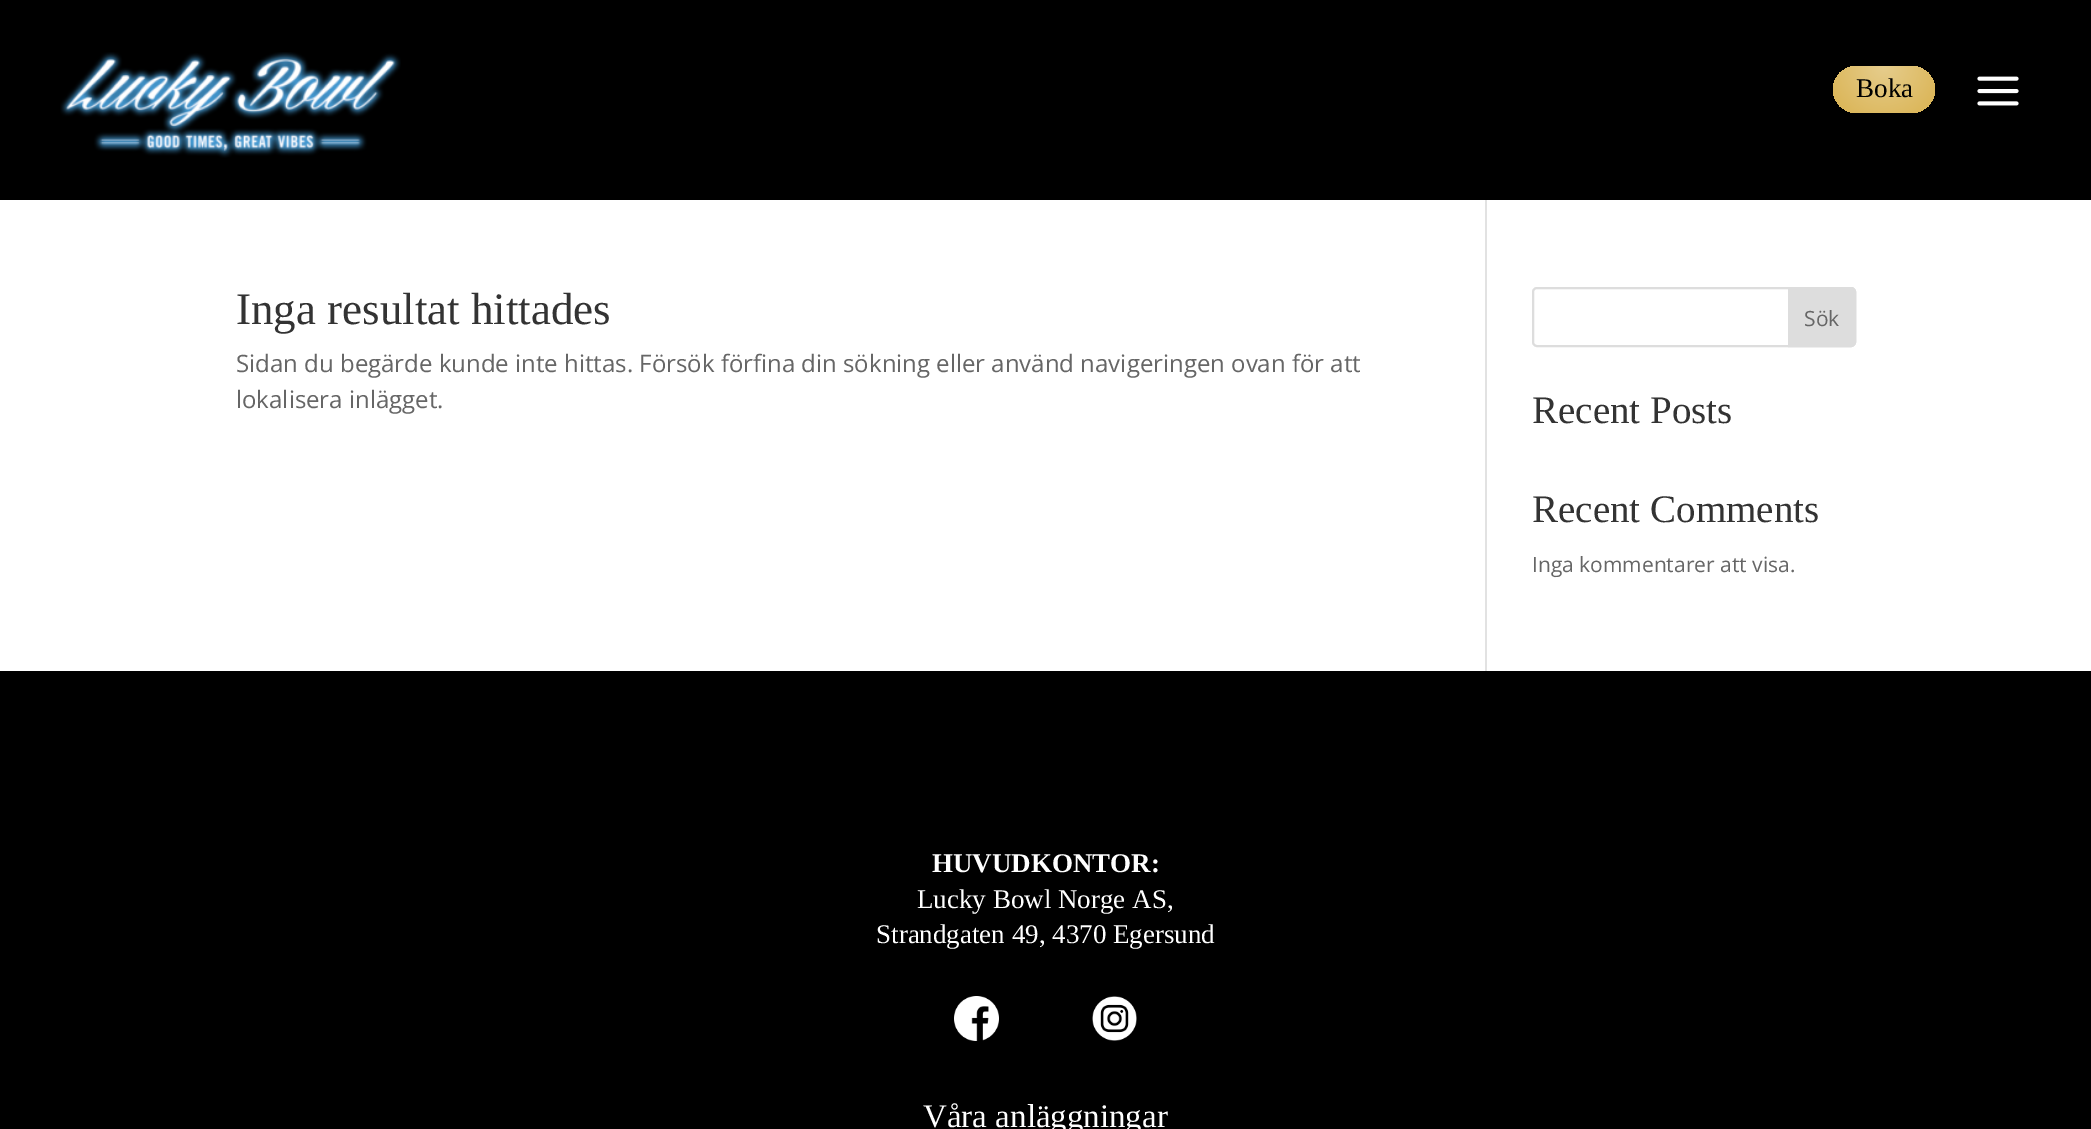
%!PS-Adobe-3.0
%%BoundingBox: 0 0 2091 1129
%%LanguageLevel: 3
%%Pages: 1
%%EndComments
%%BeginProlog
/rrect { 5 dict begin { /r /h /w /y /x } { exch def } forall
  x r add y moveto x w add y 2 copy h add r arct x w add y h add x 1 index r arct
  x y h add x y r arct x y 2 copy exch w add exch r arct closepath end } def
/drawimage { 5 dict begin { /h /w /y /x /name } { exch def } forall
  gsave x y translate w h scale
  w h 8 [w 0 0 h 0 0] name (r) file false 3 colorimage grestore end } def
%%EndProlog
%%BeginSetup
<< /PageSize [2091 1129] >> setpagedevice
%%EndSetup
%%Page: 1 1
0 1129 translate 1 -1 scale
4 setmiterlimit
0 setgray
0 0 2091 1129 rectfill
(images/1.raw) 60 52 341 106 drawimage
gsave 1833 66 102 47 23.5 rrect clip newpath 1884 66 translate 69 69 scale
<< /ShadingType 3 /ColorSpace /DeviceRGB /Coords [0 0 0 0 0 1] /Extend [true true] /Function << /FunctionType 2 /Domain [0 1] /C0 [0.902 0.804 0.553] /C1 [0.855 0.702 0.322] /N 1 >> >> shfill grestore
(images/2.raw) 1977 76 42 30 drawimage
1 setgray
0 200 2091 471 rectfill
0.886 setgray
1485 200 2 471 rectfill
0.867 setgray
2 setlinewidth
1533 288 322 58 4 rrect stroke
newpath 1789 288 moveto 1851 288 lineto 1853 288 1855 290 1855 292 curveto 1855 342 lineto 1855 344 1853 346 1851 346 curveto 1789 346 lineto closepath gsave fill grestore
stroke
(images/3.raw) 954 996 45 45 drawimage
(images/4.raw) 1092 996 45 45 drawimage
/LiberationSerif-Regular [27 0 0 -27 0 0] selectfont
0 setgray
1856 97 moveto (Boka) show
/LiberationSerif-Regular [45 0 0 -45 0 0] selectfont
0.2 setgray
236 324 moveto (Inga resultat hittades) show
/OpenSans-Regular [24 0 0 -24 0 0] selectfont
0.4 setgray
236 372 moveto (Sidan du begärde kunde inte hittas. Försök förfina din sökning eller använd navigeringen ovan för att) show
236 408 moveto (lokalisera inlägget.) show
/OpenSans-Regular [21 0 0 -21 0 0] selectfont
1804 326 moveto (Sök) show
/LiberationSerif-Regular [39 0 0 -39 0 0] selectfont
0.2 setgray
1532 423 moveto (Recent Posts) show
1532 522 moveto (Recent Comments) show
/OpenSans-Regular [21 0 0 -21 0 0] selectfont
0.4 setgray
1532 572 moveto (Inga kommentarer att visa.) show
/LiberationSerif-Bold [27 0 0 -27 0 0] selectfont
1 setgray
932 872 moveto (HUVUDKONTOR:) show
/LiberationSerif-Regular [27 0 0 -27 0 0] selectfont
917 908 moveto (Lucky Bowl Norge AS,) show
876 943 moveto (Strandgaten 49, 4370 Egersund) show
/LiberationSerif-Regular [33 0 0 -33 0 0] selectfont
923 1127 moveto (Våra anläggningar) show
showpage
%%EOF
